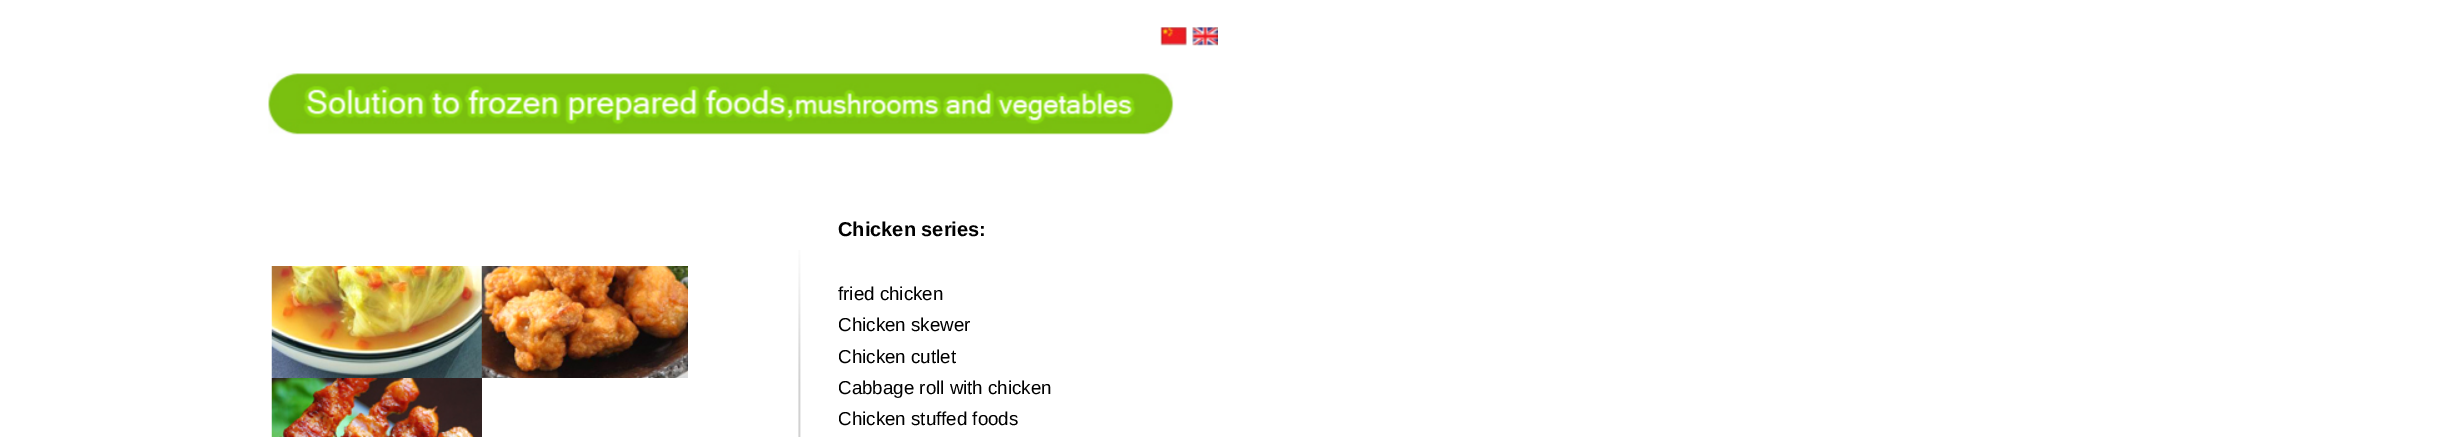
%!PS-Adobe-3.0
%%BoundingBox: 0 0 2459 437
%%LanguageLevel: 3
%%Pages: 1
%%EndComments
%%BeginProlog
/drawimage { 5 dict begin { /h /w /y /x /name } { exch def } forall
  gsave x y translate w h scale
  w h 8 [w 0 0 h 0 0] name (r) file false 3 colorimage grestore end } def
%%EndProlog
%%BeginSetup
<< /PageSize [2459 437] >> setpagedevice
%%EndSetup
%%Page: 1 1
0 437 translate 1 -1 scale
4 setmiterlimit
1 setgray
0 0 2459 437 rectfill
(images/1.raw) 1160 27 27 19 drawimage
(images/2.raw) 1192 27 26 19 drawimage
(images/3.raw) 268 73 906 62 drawimage
(images/4.raw) 271 266 211 112 drawimage
(images/5.raw) 481 266 207 112 drawimage
(images/6.raw) 271 378 211 59 drawimage
(images/7.raw) 798 250 3 187 drawimage
/LiberationSans-Bold [20 0 0 -20 0 0] selectfont
0 setgray
838 236 moveto (Chicken series:) show
/LiberationSans-Regular [18.75 0 0 -18.75 0 0] selectfont
838 300 moveto (fried chicken) show
838 331 moveto (Chicken skewer) show
838 363 moveto (Chicken cutlet) show
838 394 moveto (Cabbage roll with chicken) show
838 425 moveto (Chicken stuffed foods) show
showpage
%%EOF
